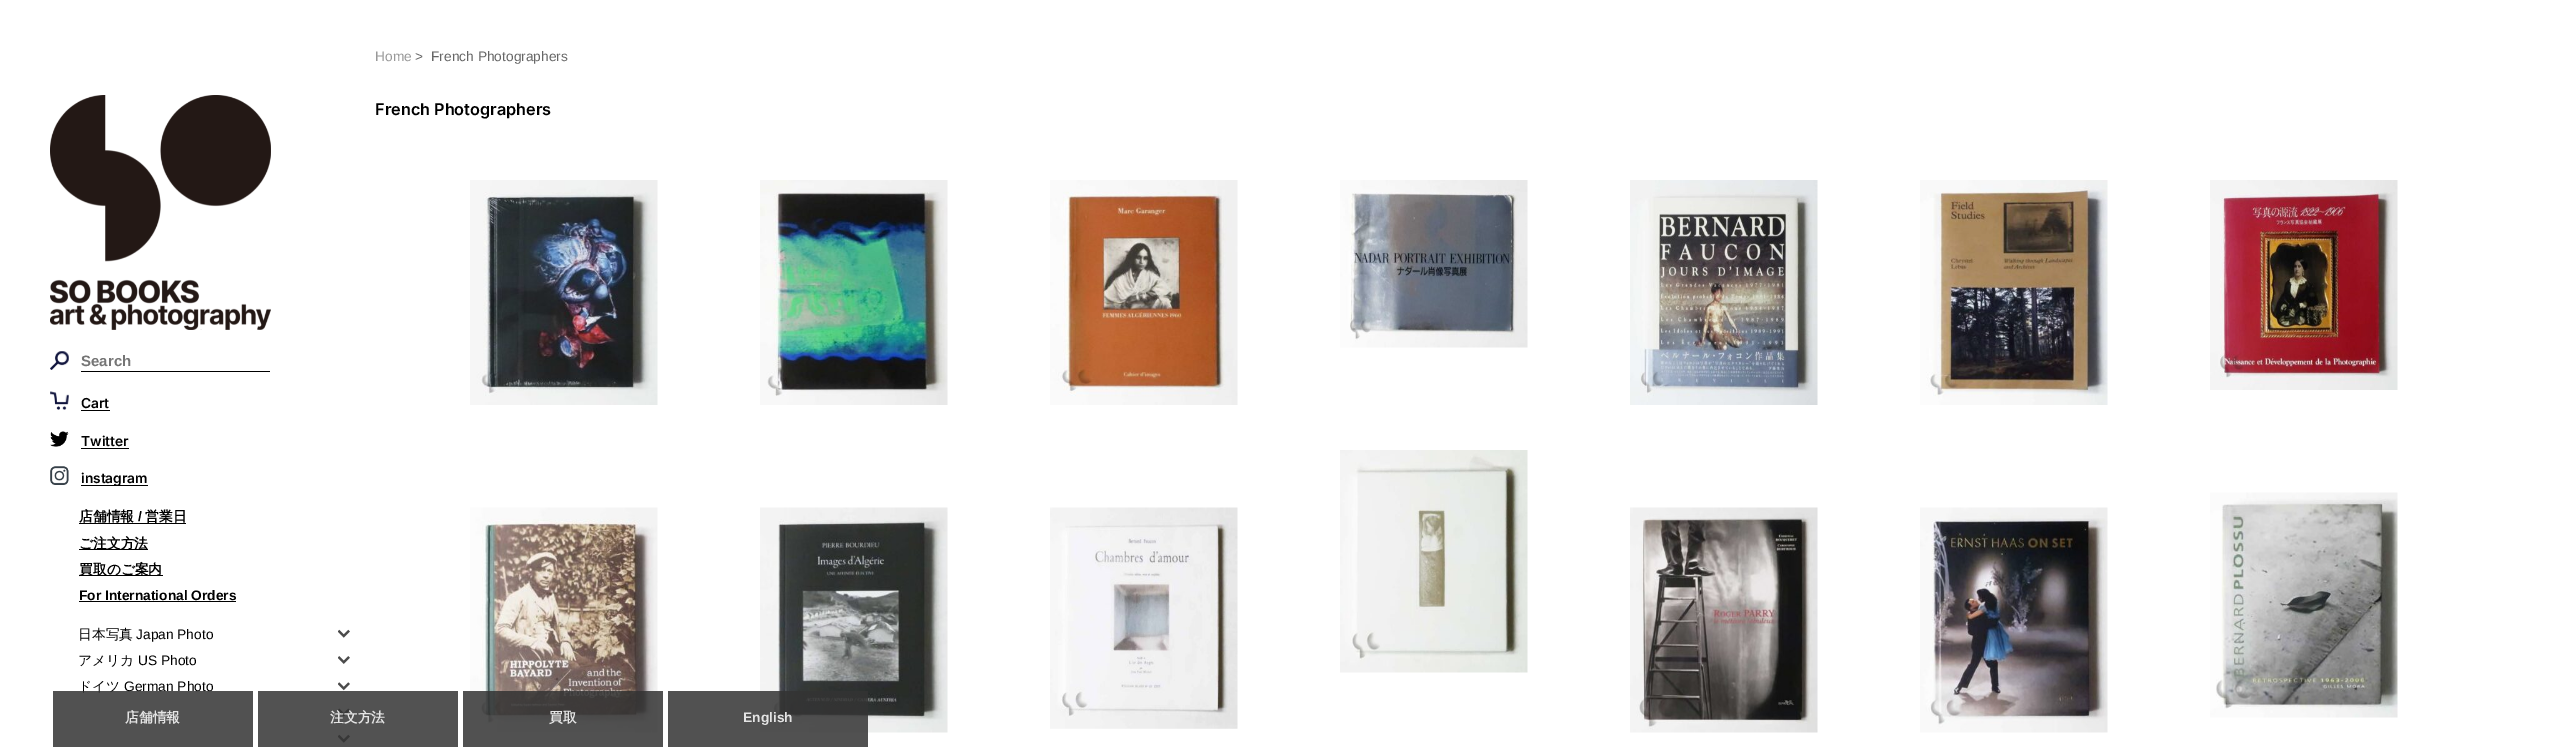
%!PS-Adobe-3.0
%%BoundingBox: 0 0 2568 747
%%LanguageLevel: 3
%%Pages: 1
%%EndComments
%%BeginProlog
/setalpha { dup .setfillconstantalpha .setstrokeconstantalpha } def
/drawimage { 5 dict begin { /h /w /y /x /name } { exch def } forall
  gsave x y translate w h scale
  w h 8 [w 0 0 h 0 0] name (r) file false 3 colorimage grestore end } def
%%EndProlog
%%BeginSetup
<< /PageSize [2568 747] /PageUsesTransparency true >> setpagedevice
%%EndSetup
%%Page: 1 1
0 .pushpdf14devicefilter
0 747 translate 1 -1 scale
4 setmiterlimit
1 setgray
0 0 2568 747 rectfill
0.322 setgray
258 691 200 56 rectfill
(images/1.raw) 470 180 188 225 drawimage
(images/2.raw) 760 180 188 225 drawimage
(images/3.raw) 1050 180 188 225 drawimage
(images/4.raw) 1340 180 188 168 drawimage
(images/5.raw) 1630 180 188 225 drawimage
(images/6.raw) 1920 180 188 225 drawimage
(images/7.raw) 2210 180 188 210 drawimage
(images/8.raw) 470 507 188 226 drawimage
(images/9.raw) 760 507 188 226 drawimage
(images/10.raw) 1050 507 188 222 drawimage
(images/11.raw) 1340 450 188 223 drawimage
(images/12.raw) 1630 507 188 226 drawimage
(images/13.raw) 1920 507 188 226 drawimage
(images/14.raw) 2210 492 188 226 drawimage
(images/15.raw) 50 95 221 235 drawimage
(images/16.raw) 50 351 19 19 drawimage
0 setgray
81 371 189 1 rectfill
(images/17.raw) 50 391 19 19 drawimage
81 410 29 1 rectfill
(images/18.raw) 50 431 19 16 drawimage
81 448 48 1 rectfill
(images/19.raw) 50 466 19 19 drawimage
81 485 67 1 rectfill
79 523 107 1 rectfill
79 549 69 1 rectfill
79 575 84 1 rectfill
79 601 157 1 rectfill
(images/20.raw) 338 629 12 9 drawimage
(images/21.raw) 338 656 12 8 drawimage
(images/22.raw) 338 682 12 9 drawimage
(images/23.raw) 338 708 12 9 drawimage
(images/24.raw) 338 734 12 9 drawimage
0.85 setalpha
0.2 setgray
463 691 200 56 rectfill
668 691 200 56 rectfill
/LiberationSans-Regular [13.75 0 0 -13.75 0 0] selectfont
1 setalpha
0.6 setgray
375 61 moveto (Home) show
0.4 setgray
415 61 moveto (>) show
431 61 moveto (French Photographers) show
/Inter-SemiBold [16.25 0 0 -16.25 0 0] selectfont
0 setgray
375 115 moveto (French Photographers) show
/LiberationSans-Bold [15 0 0 -15 0 0] selectfont
0.459 setgray
81 366 moveto (Search) show
/Inter-SemiBold [13.75 0 0 -13.75 0 0] selectfont
0 setgray
81 408 moveto (Cart) show
81 446 moveto (Twitter) show
81 483 moveto (instagram) show
/WenQuanYiZenHei-Bold [13.75 0 0 -13.75 0 0] selectfont
79 521 moveto (店舗情報) show
/LiberationSans-Bold [13.75 0 0 -13.75 0 0] selectfont
138 521 moveto (/) show
/WenQuanYiZenHei-Bold [13.75 0 0 -13.75 0 0] selectfont
145 521 moveto (営業日) show
79 548 moveto (ご注文方法) show
79 574 moveto (買取のご案内) show
/LiberationSans-Bold [13.75 0 0 -13.75 0 0] selectfont
79 600 moveto (For International Orders) show
/WenQuanYiZenHei-Medium [13.75 0 0 -13.75 0 0] selectfont
78 639 moveto (日本写真) show
/LiberationSans-Regular [13.75 0 0 -13.75 0 0] selectfont
136 639 moveto (Japan Photo) show
/WenQuanYiZenHei-Medium [13.75 0 0 -13.75 0 0] selectfont
78 665 moveto (アメリカ) show
/LiberationSans-Regular [13.75 0 0 -13.75 0 0] selectfont
138 665 moveto (US Photo) show
/WenQuanYiZenHei-Medium [13.75 0 0 -13.75 0 0] selectfont
78 691 moveto (ドイツ) show
/LiberationSans-Regular [13.75 0 0 -13.75 0 0] selectfont
124 691 moveto (German Photo) show
0.85 setalpha
0.2 setgray
53 691 200 56 rectfill
/WenQuanYiZenHei-Bold [13.75 0 0 -13.75 0 0] selectfont
1 setalpha
0.894 setgray
125 722 moveto (店舗情報) show
330 722 moveto (注文方法) show
549 722 moveto (買取) show
/LiberationSans-Bold [13.75 0 0 -13.75 0 0] selectfont
743 722 moveto (English) show
.poppdf14devicefilter showpage
%%EOF
